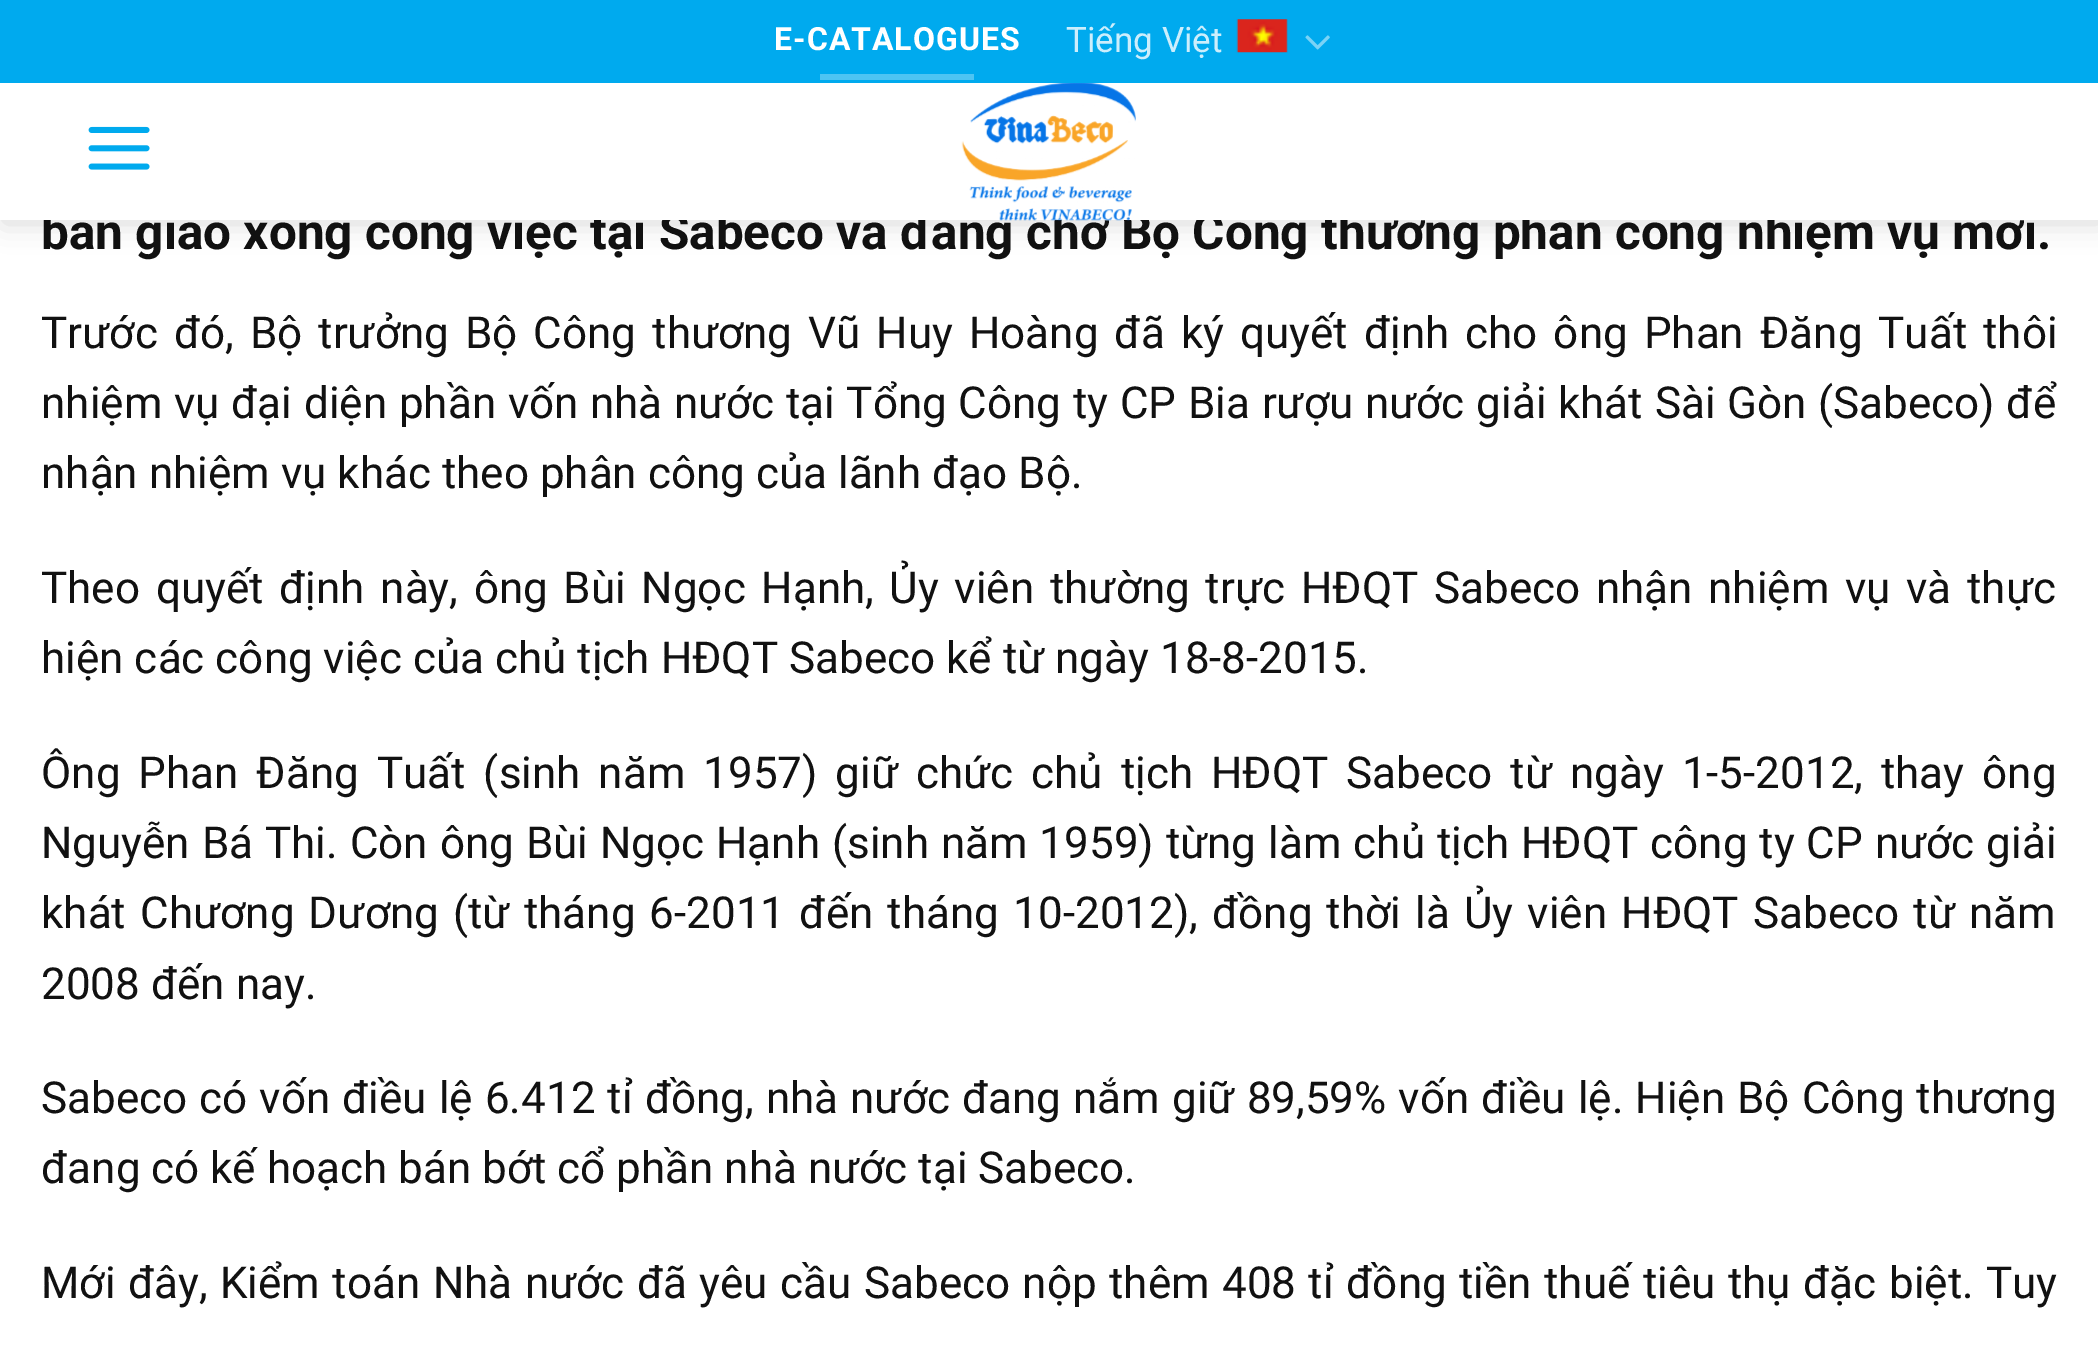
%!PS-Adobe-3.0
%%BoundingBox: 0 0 2098 1351
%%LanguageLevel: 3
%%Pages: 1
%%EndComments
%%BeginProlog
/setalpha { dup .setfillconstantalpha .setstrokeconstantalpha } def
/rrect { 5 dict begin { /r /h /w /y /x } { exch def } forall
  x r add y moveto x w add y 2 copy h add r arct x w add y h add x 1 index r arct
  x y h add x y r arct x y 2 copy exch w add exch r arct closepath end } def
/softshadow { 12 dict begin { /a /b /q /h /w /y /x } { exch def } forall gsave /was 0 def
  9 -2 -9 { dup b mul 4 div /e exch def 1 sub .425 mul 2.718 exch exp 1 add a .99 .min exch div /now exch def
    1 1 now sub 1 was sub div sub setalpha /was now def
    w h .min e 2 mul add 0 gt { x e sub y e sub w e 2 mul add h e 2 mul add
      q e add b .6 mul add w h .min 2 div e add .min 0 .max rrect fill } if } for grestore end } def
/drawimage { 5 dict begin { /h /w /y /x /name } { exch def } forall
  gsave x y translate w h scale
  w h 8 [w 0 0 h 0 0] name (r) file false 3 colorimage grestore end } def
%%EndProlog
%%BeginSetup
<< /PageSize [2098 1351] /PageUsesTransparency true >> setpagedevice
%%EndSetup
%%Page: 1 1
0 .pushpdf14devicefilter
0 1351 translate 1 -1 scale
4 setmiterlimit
1 setgray
0 0 2098 1351 rectfill
0 setgray
3 3 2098 220 0 14 0.15 softshadow
0 0.667 0.933 setrgbcolor
0 0 2098 83 rectfill
0.302 0.769 0.953 setrgbcolor
820 74 154 6 rectfill
(images/1.raw) 1236 19 52 34 drawimage
(images/2.raw) 1305 35 25 15 drawimage
/Roboto-Bold [32 0 0 -32 0 0] selectfont
1 setgray
774 50 moveto 1 0 (E-CATALOGUES) ashow
/Roboto-Regular [35 0 0 -35 0 0] selectfont
0.8 0.933 0.988 setrgbcolor
1066 52 moveto (Tiếng Việt) show
/Roboto-Bold [49.5 0 0 -49.5 0 0] selectfont
0.067 setgray
41 249 moveto (bàn giao xong công việc tại Sabeco và đang chờ Bộ Công thương phân công nhiệm vụ mới.) show
1 setgray
0 83 2098 137 rectfill
(images/3.raw) 88 126 62 44 drawimage
(images/4.raw) 961 83 175 138 drawimage
/Roboto-Regular [44 0 0 -44 0 0] selectfont
0.067 setgray
41 348 moveto 5.1 0 32 (Trước đó, Bộ trưởng Bộ Công thương Vũ Huy Hoàng đã ký quyết định cho ông Phan Đăng Tuất thôi) widthshow
41 418 moveto 0.8 0 32 (nhiệm vụ đại diện phần vốn nhà nước tại Tổng Công ty CP Bia rượu nước giải khát Sài Gòn \(Sabeco\) để) widthshow
41 488 moveto (nhận nhiệm vụ khác theo phân công của lãnh đạo Bộ.) show
41 603 moveto 4.75 0 32 (Theo quyết định này, ông Bùi Ngọc Hạnh, Ủy viên thường trực HĐQT Sabeco nhận nhiệm vụ và thực) widthshow
41 673 moveto (hiện các công việc của chủ tịch HĐQT Sabeco kể từ ngày 18-8-2015.) show
41 788 moveto 7 0 32 (Ông Phan Đăng Tuất \(sinh năm 1957\) giữ chức chủ tịch HĐQT Sabeco từ ngày 1-5-2012, thay ông) widthshow
41 858 moveto 1 0 32 (Nguyễn Bá Thi. Còn ông Bùi Ngọc Hạnh \(sinh năm 1959\) từng làm chủ tịch HĐQT công ty CP nước giải) widthshow
41 928 moveto 3.25 0 32 (khát Chương Dương \(từ tháng 6-2011 đến tháng 10-2012\), đồng thời là Ủy viên HĐQT Sabeco từ năm) widthshow
41 999 moveto (2008 đến nay.) show
41 1113 moveto 1.1 0 32 (Sabeco có vốn điều lệ 6.412 tỉ đồng, nhà nước đang nắm giữ 89,59% vốn điều lệ. Hiện Bộ Công thương) widthshow
41 1183 moveto (đang có kế hoạch bán bớt cổ phần nhà nước tại Sabeco.) show
41 1298 moveto 1.5 0 32 (Mới đây, Kiểm toán Nhà nước đã yêu cầu Sabeco nộp thêm 408 tỉ đồng tiền thuế tiêu thụ đặc biệt. Tuy) widthshow
.poppdf14devicefilter showpage
%%EOF
